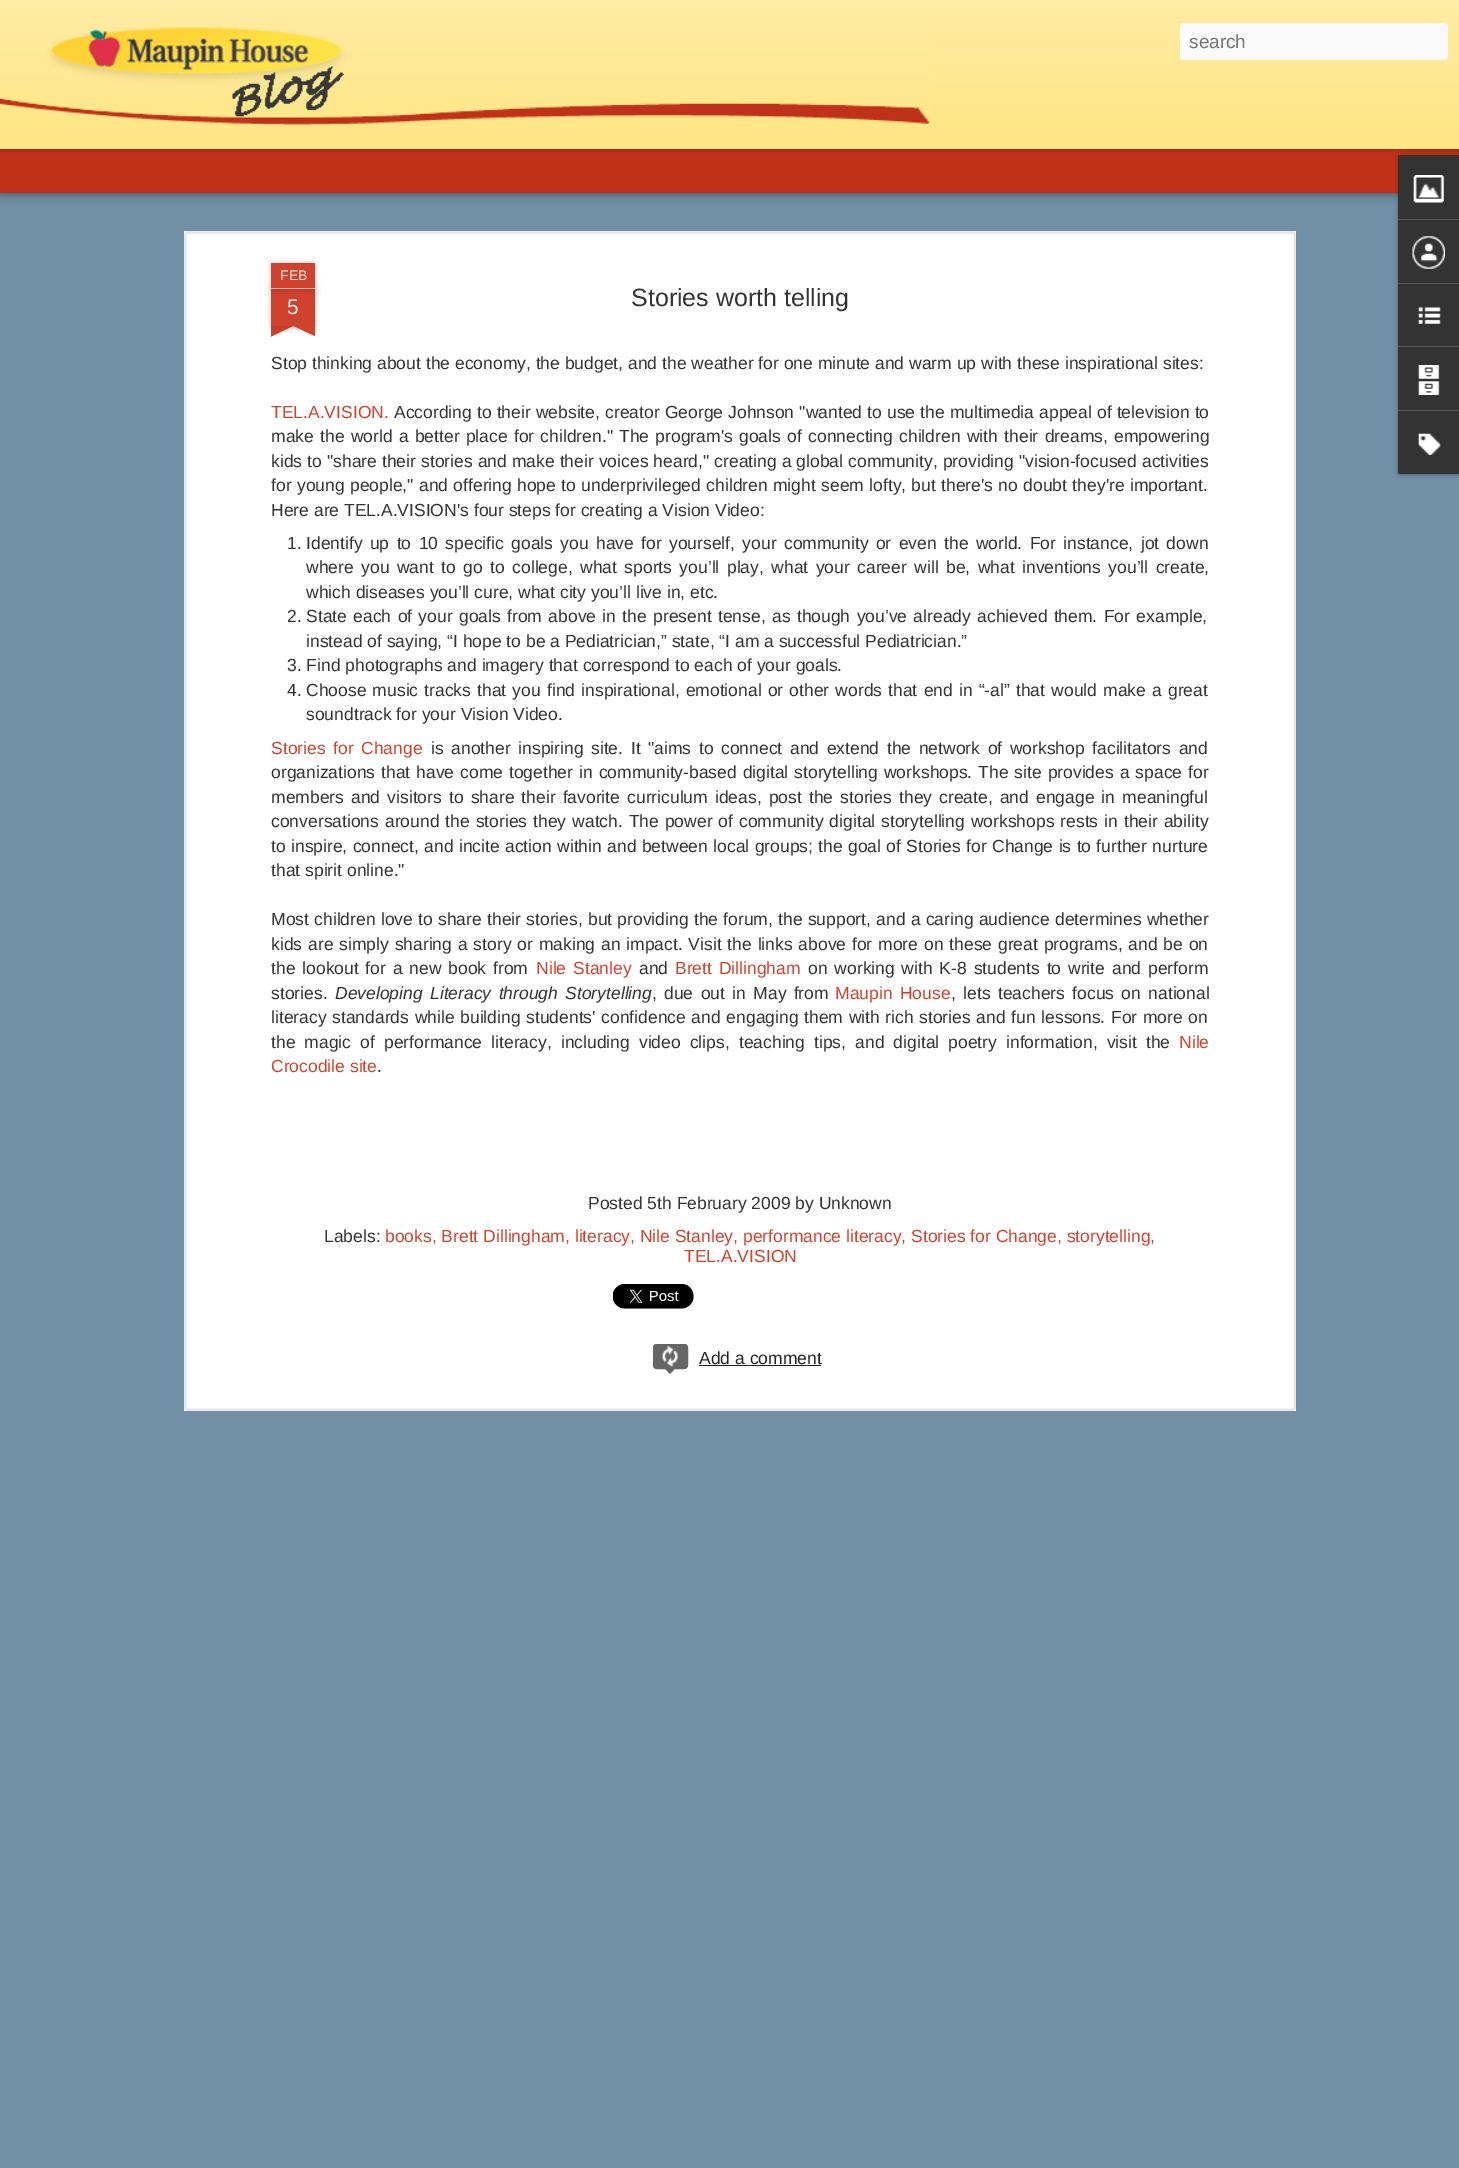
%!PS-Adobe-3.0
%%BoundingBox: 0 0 1459 2168
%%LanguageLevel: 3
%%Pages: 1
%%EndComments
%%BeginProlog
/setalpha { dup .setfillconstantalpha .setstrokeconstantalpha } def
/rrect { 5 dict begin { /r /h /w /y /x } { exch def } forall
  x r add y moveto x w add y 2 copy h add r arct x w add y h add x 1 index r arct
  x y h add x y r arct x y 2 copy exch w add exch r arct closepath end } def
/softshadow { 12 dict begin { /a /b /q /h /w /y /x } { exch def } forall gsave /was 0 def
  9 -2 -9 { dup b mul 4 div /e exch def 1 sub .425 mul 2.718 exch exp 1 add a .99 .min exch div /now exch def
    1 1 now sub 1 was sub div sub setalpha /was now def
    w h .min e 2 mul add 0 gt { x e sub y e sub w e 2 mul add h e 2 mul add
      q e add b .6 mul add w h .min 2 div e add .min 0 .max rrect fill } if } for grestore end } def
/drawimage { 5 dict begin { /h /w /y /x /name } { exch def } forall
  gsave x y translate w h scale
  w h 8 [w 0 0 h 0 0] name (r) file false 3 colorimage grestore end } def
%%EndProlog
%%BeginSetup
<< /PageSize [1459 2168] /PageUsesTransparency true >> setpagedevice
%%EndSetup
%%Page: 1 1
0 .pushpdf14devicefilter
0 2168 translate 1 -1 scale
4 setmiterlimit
0.443 0.561 0.647 setrgbcolor
0 0 1459 2168 rectfill
0 setgray
0 149 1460 44 0 5 0.5 softshadow
0.753 0.192 0.102 setrgbcolor
0 149 1459 44 rectfill
0 setgray
0 0 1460 149 0 3 0.3 softshadow
gsave newpath 0 0 moveto 1459 0 lineto 1459 149 lineto 0 149 lineto closepath clip newpath
<< /ShadingType 2 /ColorSpace /DeviceRGB /Coords [0 0 0 149] /Extend [true true] /Function << /FunctionType 2 /Domain [0 1] /C0 [1 0.925 0.643] /C1 [1 0.898 0.514] /N 1 >> >> shfill grestore
(images/1.raw) 0 27 931 98 drawimage
0.98 setgray
1180 23 268 37 4 rrect fill
1 setgray
184 231 1112 1180 rectfill
(images/2.raw) 184 231 1113 1180 drawimage
0 setgray
271 289 44 37 0 3 0.2 softshadow
0.816 0.259 0.173 setrgbcolor
271 289 44 37 rectfill
0 setgray
271 263 44 26 1 3 0.2 softshadow
0.816 0.259 0.173 setrgbcolor
newpath 272 263 moveto 314 263 lineto 314.5 263 315 263.5 315 264 curveto 315 289 lineto 271 289 lineto 271 264 lineto 271 263.5 271.5 263 272 263 curveto closepath fill
0.925 0.702 0.671 setrgbcolor
271 288 44 1 rectfill
gsave
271 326 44 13 rectclip
0 setgray
260 314 63 12 0 3 0.2 softshadow
grestore
gsave
271 326 44 13 rectclip
0.816 0.259 0.173 setrgbcolor
newpath 260 328 moveto 317 301 lineto 322 312 lineto 266 339 lineto closepath fill
grestore
gsave
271 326 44 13 rectclip
0 setgray
264 314 62 12 0 3 0.2 softshadow
grestore
gsave
271 326 44 13 rectclip
0.816 0.259 0.173 setrgbcolor
newpath 269 301 moveto 326 328 lineto 321 339 lineto 264 312 lineto closepath fill
grestore
(images/3.raw) 613 1284 81 25 drawimage
0.4 setgray
653 1344 35 25 4 rrect fill
(images/4.raw) 662 1346 16 21 drawimage
653.5 1344.5 34 24 3.5 rrect stroke
newpath 664 1367.5 moveto 676 1367.5 lineto 670 1374 lineto closepath fill
0.133 setgray
699 1365 122 1 rectfill
0 setgray
1398 156 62 319 2.5 2 0.3 softshadow
0.2 setgray
newpath 1400.5 155 moveto 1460 155 lineto 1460 474 lineto 1400.5 474 lineto 1399 474 1398 473 1398 471.5 curveto 1398 157.5 lineto 1398 156 1399 155 1400.5 155 curveto closepath fill
newpath 1400.5 155 moveto 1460 155 lineto 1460 219 lineto 1398 219 lineto 1398 157.5 lineto 1398 156 1399 155 1400.5 155 curveto closepath fill
(images/5.raw) 1413 175 31 28 drawimage
0.345 setgray
1398 219 61 1 rectfill
(images/6.raw) 1412 236 33 33 drawimage
1398 283 61 1 rectfill
(images/7.raw) 1418 307 23 17 drawimage
1398 346 61 1 rectfill
(images/8.raw) 1418 365 22 30 drawimage
0.2 setgray
newpath 1398 410 moveto 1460 410 lineto 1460 474 lineto 1400.5 474 lineto 1399 474 1398 473 1398 471.5 curveto closepath fill
0.345 setgray
1398 410 61 1 rectfill
(images/9.raw) 1418 433 23 22 drawimage
/LiberationSans-Regular [19 0 0 -19 0 0] selectfont
0.459 setgray
1189 48 moveto (search) show
/LiberationSans-Regular [14 0 0 -14 0 0] selectfont
0.933 setgray
280 280 moveto (FEB) show
/LiberationSans-Regular [21 0 0 -21 0 0] selectfont
287 314 moveto (5) show
/LiberationSans-Regular [25 0 0 -25 0 0] selectfont
0.2 setgray
631 306 moveto (Stories worth telling) show
/LiberationSans-Regular [17.5 0 0 -17.5 0 0] selectfont
271 369 moveto (Stop thinking about the economy, the budget, and the weather for one minute and warm up with these inspirational sites:) show
0.816 0.259 0.173 setrgbcolor
271 418 moveto (TEL.A.VISION.) show
0.2 setgray
394 418 moveto 0.25 0 32 (According to their website, creator George Johnson "wanted to use the multimedia appeal of television to) widthshow
271 442 moveto 1.4 0 32 (make the world a better place for children." The program's) widthshow
739 442 moveto 1.5 0 32 (goals of connecting children with their dreams, empowering) widthshow
271 467 moveto 0.2 0 32 (kids to "share their stories and make their voices heard," creating a global community, providing "vision-focused activities) widthshow
271 491 moveto 0.5 0 32 (for young people," and offering hope to underprivileged children might seem lofty, but there's no doubt they're important.) widthshow
271 516 moveto (Here are TEL.A.VISION's four steps for creating a Vision Video:) show
287 549 moveto (1.) show
306 549 moveto 2.5 0 32 (Identify up to 10 specific goals you have for yourself, your community or even the world. For instance, jot down) widthshow
306 573 moveto 2.6 0 32 (where you want to go to college, what sports you’ll play, what your career will be, what inventions you’ll create,) widthshow
306 598 moveto (which diseases you’ll cure, what city you’ll live in, etc.) show
287 622 moveto (2.) show
306 622 moveto 1.5 0 32 (State each of your goals from above in the present tense, as though you’ve already achieved them. For example,) widthshow
306 647 moveto (instead of saying, “I hope to be a Pediatrician,” state, “I am a successful Pediatrician.”) show
287 671 moveto (3. Find photographs and imagery that correspond to each of your goals.) show
287 696 moveto (4.) show
306 696 moveto 1.3 0 32 (Choose music tracks that you find inspirational, emotional or other words that end in “-al” that would make a great) widthshow
306 720 moveto (soundtrack for your Vision Video.) show
0.816 0.259 0.173 setrgbcolor
271 754 moveto 2.75 0 32 (Stories for Change) widthshow
0.2 setgray
431 754 moveto 2.75 0 32 (is another inspiring site. It "aims to connect and extend the network of workshop facilitators and) widthshow
271 778 moveto 1.1 0 32 (organizations that have come together in community-based digital storytelling workshops. The site provides a space for) widthshow
271 803 moveto 2.25 0 32 (members and visitors to share their favorite curriculum ideas, post the stories they create, and engage in meaningful) widthshow
271 827 moveto 1.1 0 32 (conversations around the stories they watch. The power of community digital storytelling workshops rests in their ability) widthshow
271 852 moveto 0.5 0 32 (to inspire, connect, and incite action within and between local groups; the goal of Stories for Change is to further nurture) widthshow
271 876 moveto (that spirit online.") show
271 925 moveto 0.4 0 32 (Most children love to share their stories, but providing the forum, the support, and a caring audience determines whether) widthshow
271 950 moveto 1 0 32 (kids are simply sharing a story or making an impact. Visit the links above for more on these great programs, and be on) widthshow
271 974 moveto 2 0 32 (the lookout for a new book from) widthshow
0.816 0.259 0.173 setrgbcolor
536 974 moveto 2 0 32 (Nile Stanley) widthshow
0.2 setgray
639 974 moveto (and) show
0.816 0.259 0.173 setrgbcolor
675 974 moveto 2 0 32 (Brett Dillingham) widthshow
0.2 setgray
808 974 moveto 2 0 32 (on working with K-8 students to write and perform) widthshow
271 999 moveto (stories.) show
/LiberationSans-Italic [17.5 0 0 -17.5 0 0] selectfont
335 999 moveto 2.5 0 32 (Developing Literacy through Storytelling) widthshow
/LiberationSans-Regular [17.5 0 0 -17.5 0 0] selectfont
652 999 moveto (,) show
664 999 moveto 2.5 0 32 (due out in May from) widthshow
0.816 0.259 0.173 setrgbcolor
835 999 moveto 2.5 0 32 (Maupin House) widthshow
0.2 setgray
951 999 moveto 2.5 0 32 (, lets teachers focus on national) widthshow
271 1023 moveto 0.8 0 32 (literacy standards while building students' confidence and engaging them with rich stories and fun lessons. For more on) widthshow
271 1048 moveto 4.25 0 32 (the magic of performance literacy, including video clips, teaching tips, and digital poetry information, visit the) widthshow
0.816 0.259 0.173 setrgbcolor
1179 1048 moveto (Nile) show
271 1072 moveto (Crocodile site) show
0.2 setgray
377 1072 moveto (.) show
588 1209 moveto (Posted 5th February 2009 by Unknown) show
324 1242 moveto (Labels:) show
0.816 0.259 0.173 setrgbcolor
385 1242 moveto (books, Brett Dillingham, literacy, Nile Stanley, performance literacy, Stories for Change, storytelling,) show
684 1262 moveto (TEL.A.VISION) show
0.133 setgray
699 1364 moveto (Add a comment) show
.poppdf14devicefilter showpage
%%EOF
